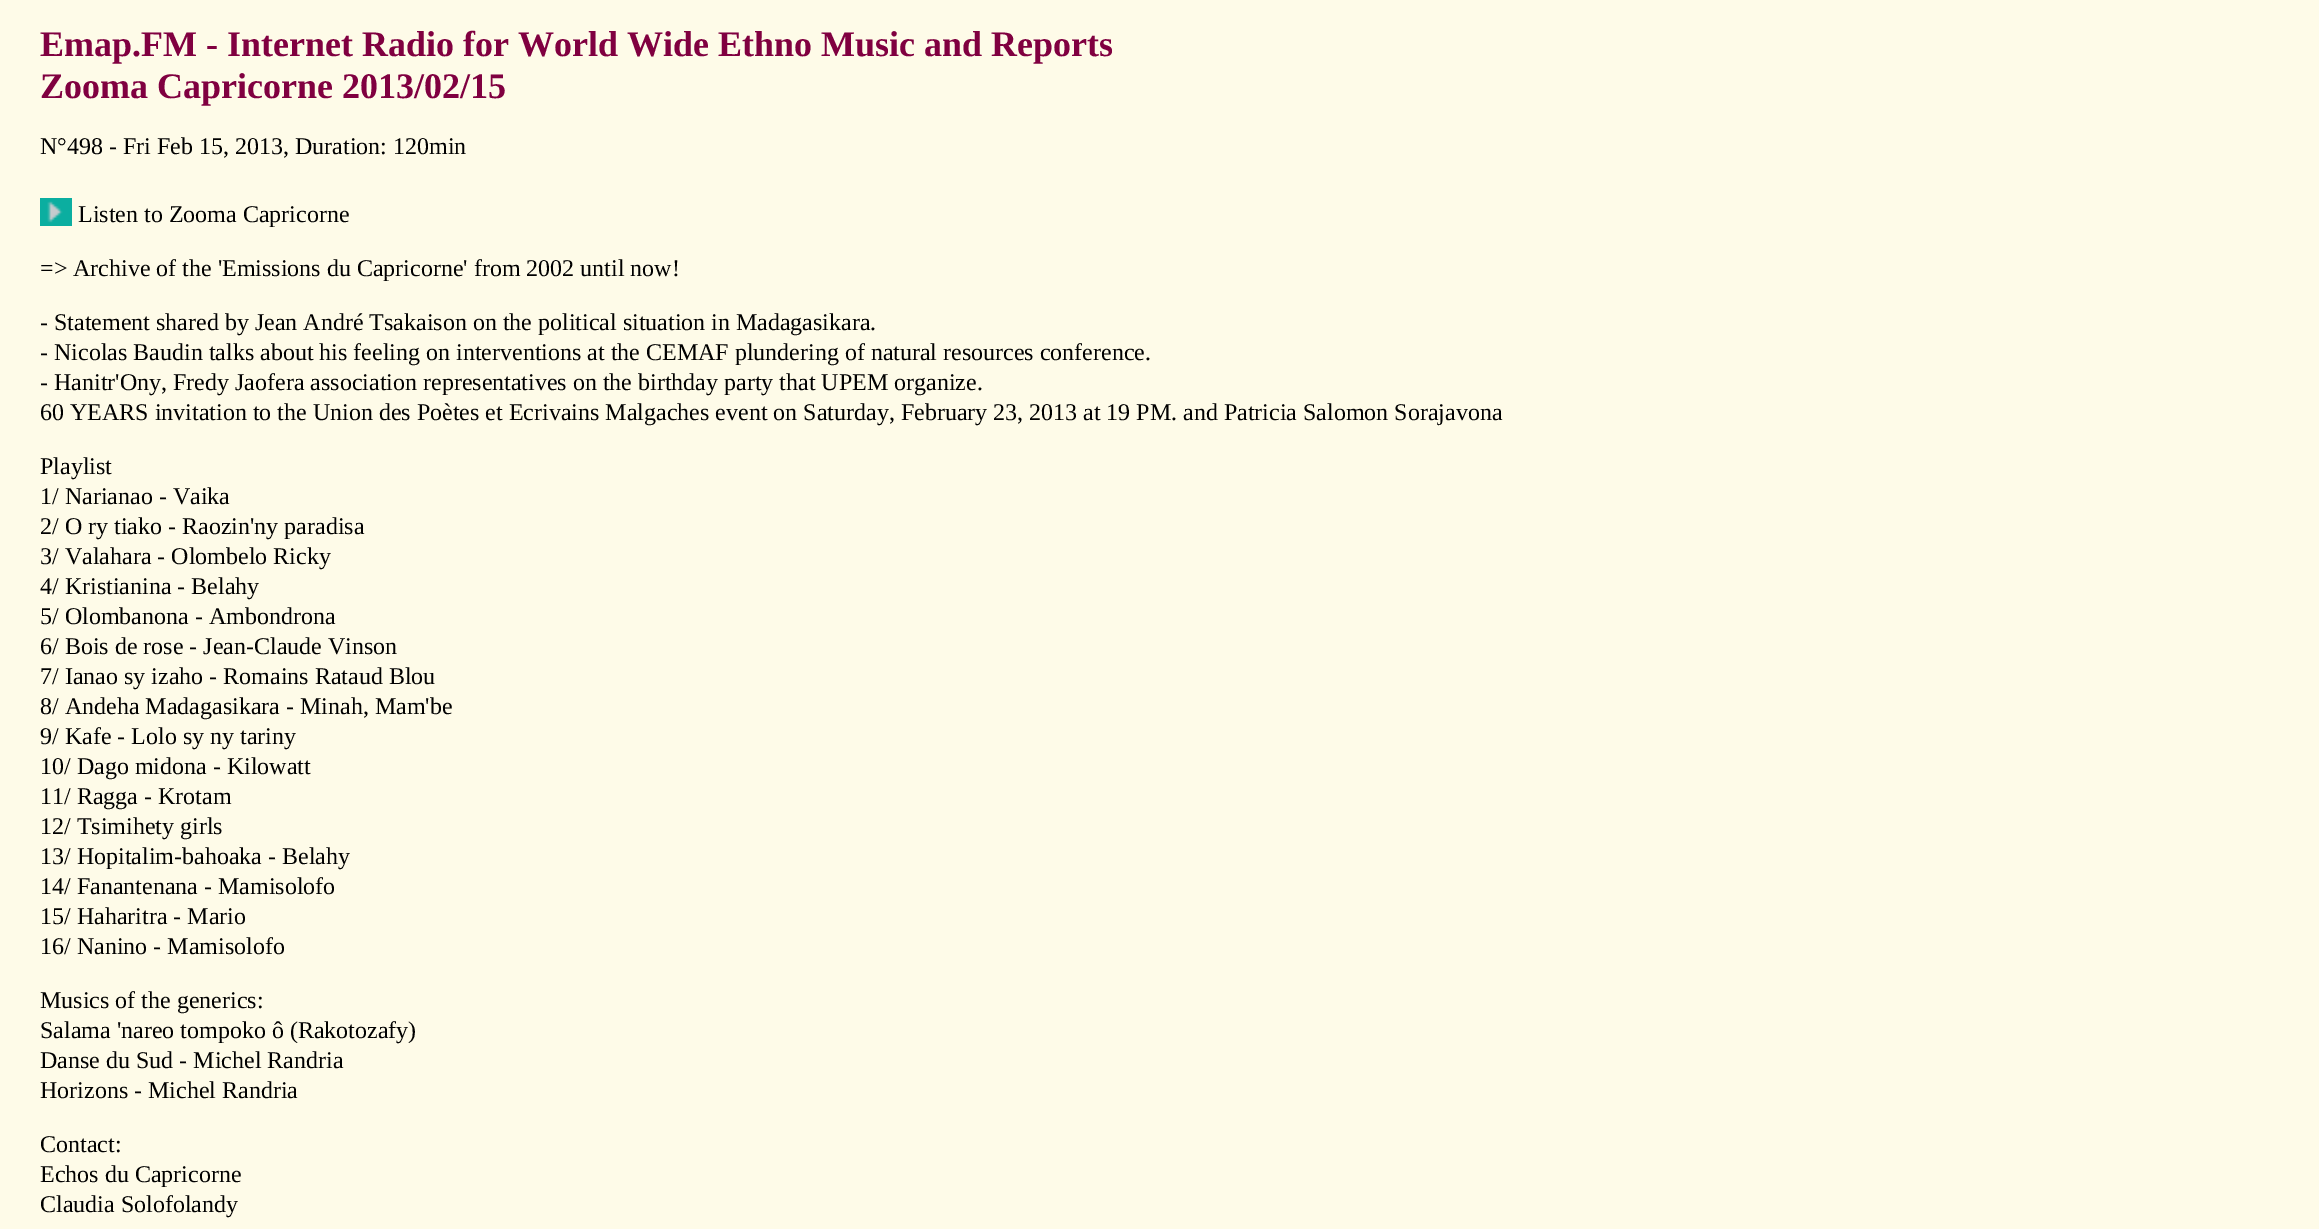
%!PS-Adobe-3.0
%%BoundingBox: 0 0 2319 1229
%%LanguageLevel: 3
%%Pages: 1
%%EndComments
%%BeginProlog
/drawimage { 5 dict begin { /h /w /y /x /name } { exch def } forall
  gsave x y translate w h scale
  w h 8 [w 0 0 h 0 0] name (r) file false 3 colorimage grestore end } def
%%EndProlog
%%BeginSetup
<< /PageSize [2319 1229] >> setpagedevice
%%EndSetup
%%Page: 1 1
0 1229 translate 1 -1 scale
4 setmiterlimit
0.996 0.984 0.91 setrgbcolor
0 0 2319 1229 rectfill
(images/1.raw) 40 198 32 28 drawimage
/LiberationSerif-Bold [36 0 0 -36 0 0] selectfont
0.502 0 0.251 setrgbcolor
40 56 moveto (Emap.FM - Internet Radio for World Wide Ethno Music and Reports) show
40 98 moveto (Zooma Capricorne 2013/02/15) show
/LiberationSerif-Regular [24 0 0 -24 0 0] selectfont
0 setgray
40 154 moveto (N°498 - Fri Feb 15, 2013, Duration: 120min) show
78 222 moveto (Listen to Zooma Capricorne) show
40 276 moveto (=> Archive of the 'Emissions du Capricorne' from 2002 until now!) show
40 330 moveto (- Statement shared by Jean André Tsakaison on the political situation in Madagasikara.) show
40 360 moveto (- Nicolas Baudin talks about his feeling on interventions at the CEMAF plundering of natural resources conference.) show
40 390 moveto (- Hanitr'Ony, Fredy Jaofera association representatives on the birthday party that UPEM organize.) show
40 420 moveto (60 YEARS invitation to the Union des Poètes et Ecrivains Malgaches event on Saturday, February 23, 2013 at 19 PM. and Patricia Salomon Sorajavona) show
40 474 moveto (Playlist) show
40 504 moveto (1/ Narianao - Vaika) show
40 534 moveto (2/ O ry tiako - Raozin'ny paradisa) show
40 564 moveto (3/ Valahara - Olombelo Ricky) show
40 594 moveto (4/ Kristianina - Belahy) show
40 624 moveto (5/ Olombanona - Ambondrona) show
40 654 moveto (6/ Bois de rose - Jean-Claude Vinson) show
40 684 moveto (7/ Ianao sy izaho - Romains Rataud Blou) show
40 714 moveto (8/ Andeha Madagasikara - Minah, Mam'be) show
40 744 moveto (9/ Kafe - Lolo sy ny tariny) show
40 774 moveto (10/ Dago midona - Kilowatt) show
40 804 moveto (11/ Ragga - Krotam) show
40 834 moveto (12/ Tsimihety girls) show
40 864 moveto (13/ Hopitalim-bahoaka - Belahy) show
40 894 moveto (14/ Fanantenana - Mamisolofo) show
40 924 moveto (15/ Haharitra - Mario) show
40 954 moveto (16/ Nanino - Mamisolofo) show
40 1008 moveto (Musics of the generics:) show
40 1038 moveto (Salama 'nareo tompoko ô \(Rakotozafy\)) show
40 1068 moveto (Danse du Sud - Michel Randria) show
40 1098 moveto (Horizons - Michel Randria) show
40 1152 moveto (Contact:) show
40 1182 moveto (Echos du Capricorne) show
40 1212 moveto (Claudia Solofolandy) show
showpage
%%EOF
